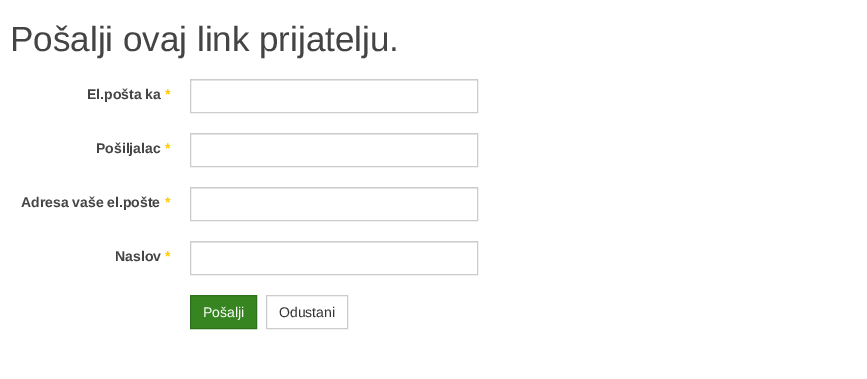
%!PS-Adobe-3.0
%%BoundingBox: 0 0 867 379
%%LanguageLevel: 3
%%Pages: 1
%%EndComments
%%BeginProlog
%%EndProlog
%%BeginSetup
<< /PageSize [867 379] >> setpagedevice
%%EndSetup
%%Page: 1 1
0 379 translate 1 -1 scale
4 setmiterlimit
1 setgray
0 0 867 379 rectfill
0.925 setgray
191 80 286 1 rectfill
0.8 setgray
190.5 79.5 287 33 rectstroke
0.925 setgray
191 134 286 1 rectfill
0.8 setgray
190.5 133.5 287 33 rectstroke
0.925 setgray
191 188 286 1 rectfill
0.8 setgray
190.5 187.5 287 33 rectstroke
0.925 setgray
191 242 286 1 rectfill
0.8 setgray
190.5 241.5 287 33 rectstroke
0.212 0.522 0.125 setrgbcolor
newpath 190.5 295.5 moveto 256.5 295.5 lineto 256.5 328.5 lineto 190.5 328.5 lineto closepath gsave fill grestore
0.18 0.439 0.106 setrgbcolor
stroke
0.8 setgray
266.5 295.5 81 33 rectstroke
/LiberationSans-Regular [35 0 0 -35 0 0] selectfont
0.267 setgray
10 51 moveto (Pošalji ovaj link prijatelju.) show
/LiberationSans-Bold [14 0 0 -14 0 0] selectfont
87 99 moveto (El.pošta ka) show
1 0.8 0 setrgbcolor
165 99 moveto (*) show
0.267 setgray
96 153 moveto (Pošiljalac) show
1 0.8 0 setrgbcolor
165 153 moveto (*) show
0.267 setgray
21 207 moveto (Adresa vaše el.pošte) show
1 0.8 0 setrgbcolor
165 207 moveto (*) show
0.267 setgray
115 261 moveto (Naslov) show
1 0.8 0 setrgbcolor
165 261 moveto (*) show
/LiberationSans-Regular [14 0 0 -14 0 0] selectfont
1 setgray
203 317 moveto (Pošalji) show
0.2 setgray
279 317 moveto (Odustani) show
showpage
%%EOF
